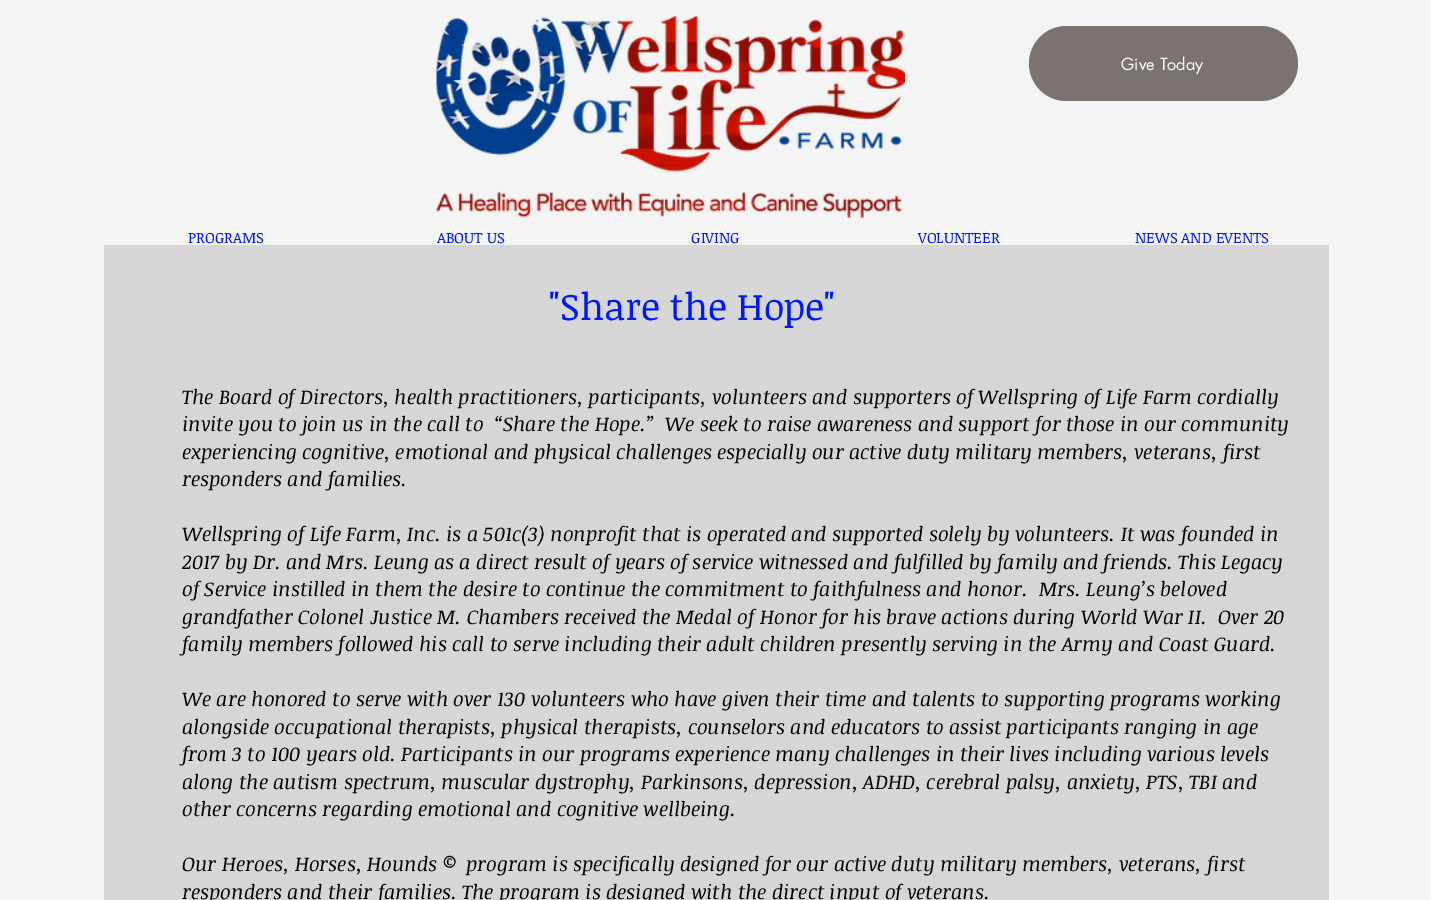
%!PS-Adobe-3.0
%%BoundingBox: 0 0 1431 900
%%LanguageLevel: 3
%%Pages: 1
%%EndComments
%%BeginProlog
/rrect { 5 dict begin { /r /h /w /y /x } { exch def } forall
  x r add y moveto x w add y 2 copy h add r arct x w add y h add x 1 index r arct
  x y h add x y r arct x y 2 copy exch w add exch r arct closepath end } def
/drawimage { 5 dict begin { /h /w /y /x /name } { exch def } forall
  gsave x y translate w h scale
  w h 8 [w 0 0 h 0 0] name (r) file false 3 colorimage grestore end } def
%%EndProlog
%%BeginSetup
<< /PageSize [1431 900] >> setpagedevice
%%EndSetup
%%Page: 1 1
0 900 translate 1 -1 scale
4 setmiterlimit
0.957 setgray
0 0 1431 900 rectfill
(images/1.raw) 436 16 469 203 drawimage
0.482 0.451 0.435 setrgbcolor
1029 26 269 75 37.5 rrect fill
0.839 setgray
104 245 1225 655 rectfill
/futura-Regular [16.25 0 0 -16.25 0 0] selectfont
1 setgray
1121 70 moveto (Give Today) show
/NoticiaText-Regular [15 0 0 -15 0 0] selectfont
0 0.098 0.988 setrgbcolor
188 243 moveto (PROGRAMS) show
437 243 moveto (ABOUT US) show
691 243 moveto (GIVING) show
918 243 moveto (VOLUNTEER) show
1135 243 moveto (NEWS AND EVENTS) show
/NoticiaText-Regular [37.5 0 0 -37.5 0 0] selectfont
549 320 moveto ("Share the Hope") show
/NoticiaText-Italic [20 0 0 -20 0 0] selectfont
0 setgray
182 404 moveto (The Board of Directors, health practitioners, participants, volunteers and supporters of Wellspring of Life Farm cordially) show
182 431 moveto (invite you to join us in the call to  “Share the Hope.”  We seek to raise awareness and support for those in our community) show
182 459 moveto (experiencing cognitive, emotional and physical challenges especially our active duty military members, veterans, first) show
182 486 moveto (responders and families.) show
182 541 moveto (Wellspring of Life Farm, Inc. is a 501c\(3\) nonprofit that is operated and supported solely by volunteers. It was founded in) show
182 569 moveto (2017 by Dr. and Mrs. Leung as a direct result of years of service witnessed and fulfilled by family and friends. This Legacy) show
182 596 moveto (of Service instilled in them the desire to continue the commitment to faithfulness and honor.  Mrs. Leung’s beloved) show
182 624 moveto (grandfather Colonel Justice M. Chambers received the Medal of Honor for his brave actions during World War II.  Over 20) show
182 651 moveto (family members followed his call to serve including their adult children presently serving in the Army and Coast Guard.) show
182 706 moveto (We are honored to serve with over 130 volunteers who have given their time and talents to supporting programs working) show
182 734 moveto (alongside occupational therapists, physical therapists, counselors and educators to assist participants ranging in age) show
182 761 moveto (from 3 to 100 years old. Participants in our programs experience many challenges in their lives including various levels) show
182 789 moveto (along the autism spectrum, muscular dystrophy, Parkinsons, depression, ADHD, cerebral palsy, anxiety, PTS, TBI and) show
182 816 moveto (other concerns regarding emotional and cognitive wellbeing.) show
182 871 moveto (Our Heroes, Horses, Hounds ©  program is specifically designed for our active duty military members, veterans, first) show
182 899 moveto (responders and their families. The program is designed with the direct input of veterans.) show
showpage
%%EOF
